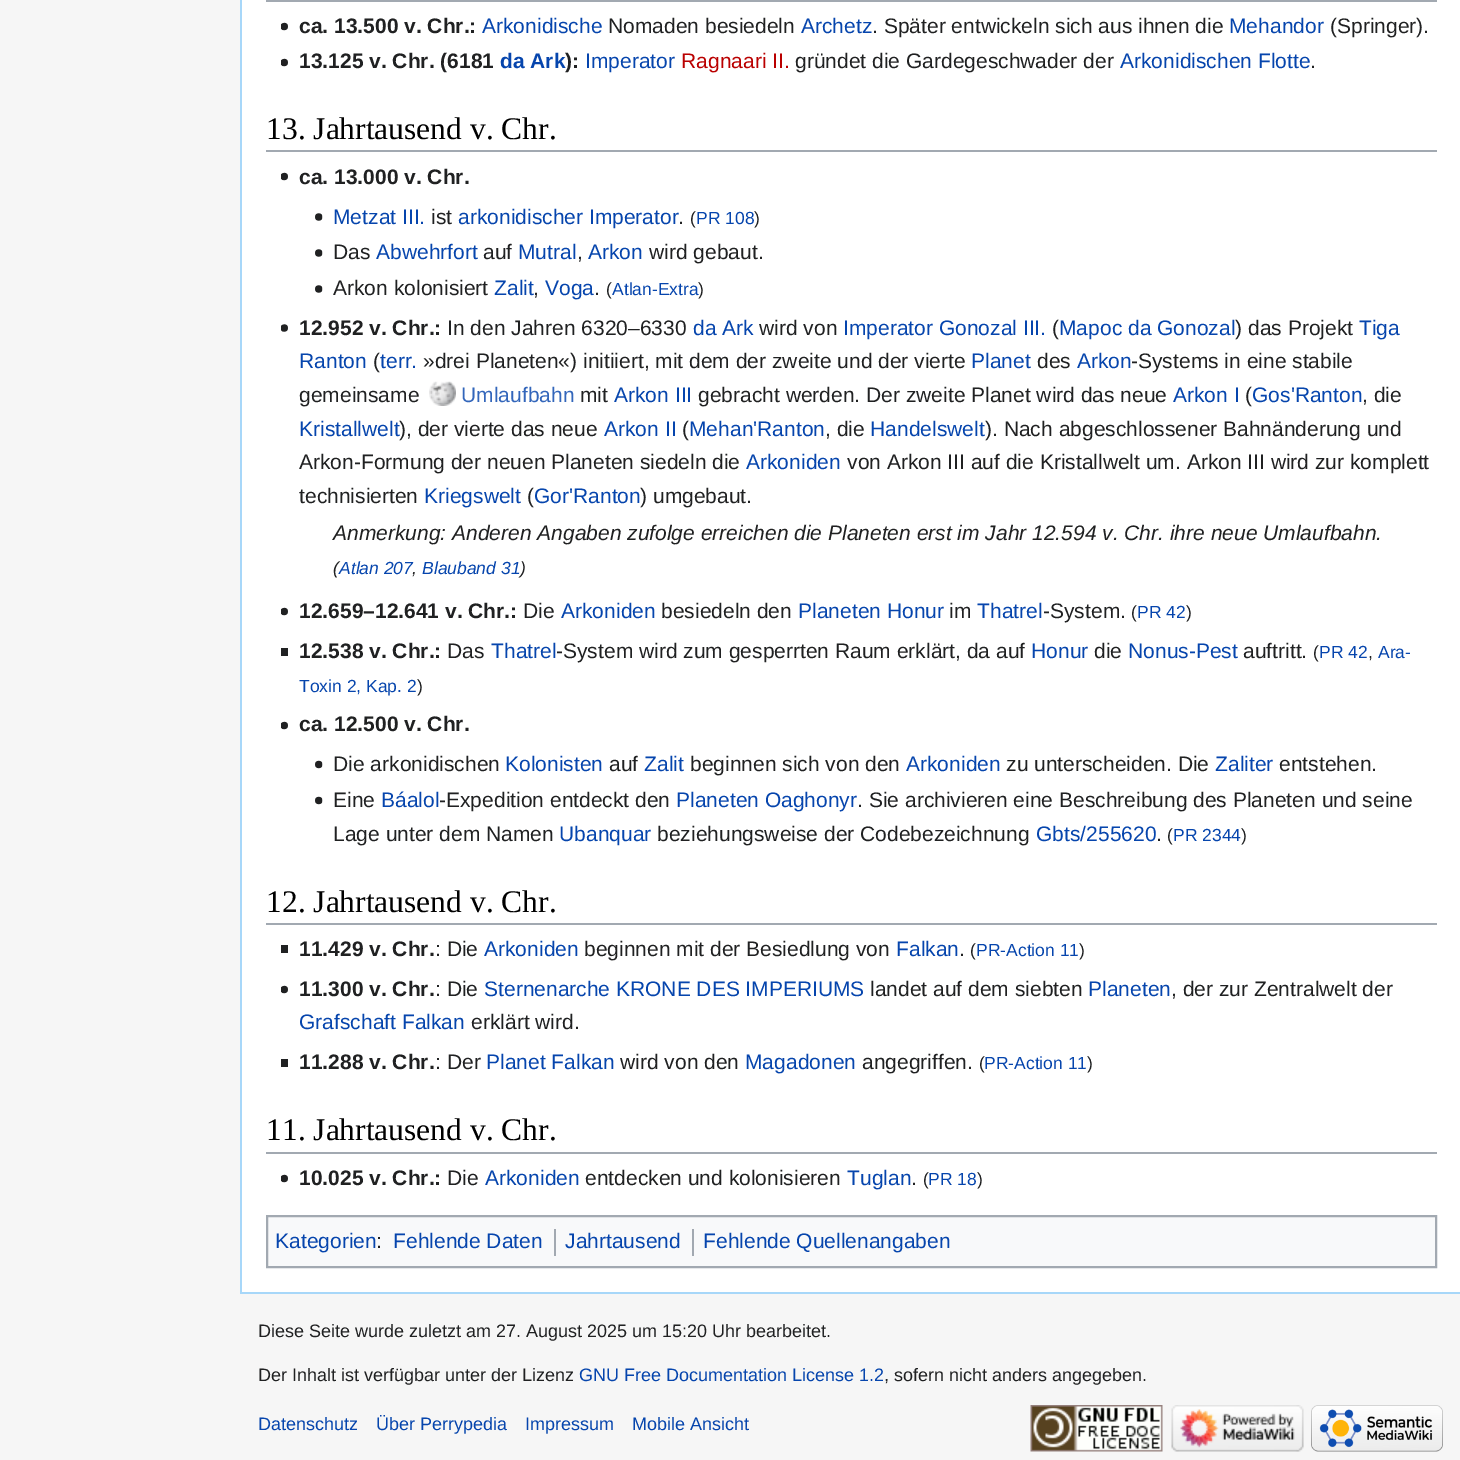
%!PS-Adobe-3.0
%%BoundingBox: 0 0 1460 1460
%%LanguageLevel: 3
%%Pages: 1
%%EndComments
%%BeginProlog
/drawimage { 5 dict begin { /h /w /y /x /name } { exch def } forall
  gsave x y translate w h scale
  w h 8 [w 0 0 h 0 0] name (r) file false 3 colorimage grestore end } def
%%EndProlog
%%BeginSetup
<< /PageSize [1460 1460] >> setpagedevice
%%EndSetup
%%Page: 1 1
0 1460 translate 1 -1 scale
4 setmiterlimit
0.965 setgray
0 0 1460 1460 rectfill
1 setgray
242 0 1218 1292 rectfill
0.655 0.843 0.976 setrgbcolor
240 1292 1220 2 rectfill
240 0 2 1293 rectfill
0.635 0.663 0.694 setrgbcolor
266 0 1171 2 rectfill
(images/1.raw) 281 22 7 9 drawimage
(images/1.raw) 281 58 7 9 drawimage
266 150 1171 2 rectfill
(images/1.raw) 281 172 7 9 drawimage
(images/2.raw) 315 213 8 8 drawimage
(images/2.raw) 315 249 8 8 drawimage
(images/2.raw) 315 285 8 8 drawimage
(images/3.raw) 281 324 7 8 drawimage
(images/4.raw) 429 381 27 25 drawimage
(images/1.raw) 281 607 7 9 drawimage
0.125 0.129 0.133 setrgbcolor
281 648 7 8 rectfill
(images/1.raw) 281 721 7 9 drawimage
(images/5.raw) 315 760 8 9 drawimage
(images/5.raw) 315 796 8 9 drawimage
0.635 0.663 0.694 setrgbcolor
266 923 1171 2 rectfill
0.125 0.129 0.133 setrgbcolor
281 945 7 8 rectfill
(images/1.raw) 281 985 7 9 drawimage
281 1059 7 8 rectfill
0.635 0.663 0.694 setrgbcolor
266 1152 1171 2 rectfill
(images/1.raw) 281 1174 7 9 drawimage
0.973 0.976 0.98 setrgbcolor
newpath 267 1216 moveto 1436 1216 lineto 1436 1267 lineto 267 1267 lineto closepath gsave fill grestore
0.635 0.663 0.694 setrgbcolor
2 setlinewidth
stroke
554 1229 2 27 rectfill
692 1229 2 27 rectfill
(images/6.raw) 1030 1405 133 47 drawimage
(images/7.raw) 1171 1405 133 47 drawimage
(images/8.raw) 1311 1405 132 47 drawimage
/LiberationSans-Bold [21 0 0 -21 0 0] selectfont
0.125 0.129 0.133 setrgbcolor
299 33 moveto (ca. 13.500 v. Chr.:) show
/LiberationSans-Regular [21 0 0 -21 0 0] selectfont
0.024 0.271 0.678 setrgbcolor
482 33 moveto (Arkonidische) show
0.125 0.129 0.133 setrgbcolor
608 33 moveto (Nomaden besiedeln) show
0.024 0.271 0.678 setrgbcolor
801 33 moveto (Archetz) show
0.125 0.129 0.133 setrgbcolor
872 33 moveto (. Später entwickeln sich aus ihnen die) show
0.024 0.271 0.678 setrgbcolor
1229 33 moveto (Mehandor) show
0.125 0.129 0.133 setrgbcolor
1330 33 moveto (\(Springer\).) show
/LiberationSans-Bold [21 0 0 -21 0 0] selectfont
299 68 moveto (13.125 v. Chr. \(6181) show
0.024 0.271 0.678 setrgbcolor
500 68 moveto (da Ark) show
0.125 0.129 0.133 setrgbcolor
565 68 moveto (\):) show
/LiberationSans-Regular [21 0 0 -21 0 0] selectfont
0.024 0.271 0.678 setrgbcolor
585 68 moveto (Imperator) show
0.729 0 0 setrgbcolor
681 68 moveto (Ragnaari II.) show
0.125 0.129 0.133 setrgbcolor
795 68 moveto (gründet die Gardegeschwader der) show
0.024 0.271 0.678 setrgbcolor
1120 68 moveto (Arkonidischen Flotte) show
0.125 0.129 0.133 setrgbcolor
1310 68 moveto (.) show
/LiberationSerif-Regular [31.5 0 0 -31.5 0 0] selectfont
0 setgray
266 139 moveto (13. Jahrtausend v. Chr.) show
/LiberationSans-Bold [21 0 0 -21 0 0] selectfont
0.125 0.129 0.133 setrgbcolor
299 184 moveto (ca. 13.000 v. Chr.) show
/LiberationSans-Regular [21 0 0 -21 0 0] selectfont
0.024 0.271 0.678 setrgbcolor
333 224 moveto (Metzat III.) show
0.125 0.129 0.133 setrgbcolor
431 224 moveto (ist) show
0.024 0.271 0.678 setrgbcolor
458 224 moveto (arkonidischer Imperator) show
0.125 0.129 0.133 setrgbcolor
678 224 moveto (.) show
/LiberationSans-Regular [17.5 0 0 -17.5 0 0] selectfont
690 224 moveto (\() show
0.024 0.271 0.678 setrgbcolor
696 224 moveto (PR 108) show
0.125 0.129 0.133 setrgbcolor
754 224 moveto (\)) show
/LiberationSans-Regular [21 0 0 -21 0 0] selectfont
333 259 moveto (Das) show
0.024 0.271 0.678 setrgbcolor
376 259 moveto (Abwehrfort) show
0.125 0.129 0.133 setrgbcolor
483 259 moveto (auf) show
0.024 0.271 0.678 setrgbcolor
518 259 moveto (Mutral) show
0.125 0.129 0.133 setrgbcolor
577 259 moveto (,) show
0.024 0.271 0.678 setrgbcolor
588 259 moveto (Arkon) show
0.125 0.129 0.133 setrgbcolor
649 259 moveto (wird gebaut.) show
333 295 moveto (Arkon kolonisiert) show
0.024 0.271 0.678 setrgbcolor
494 295 moveto (Zalit) show
0.125 0.129 0.133 setrgbcolor
533 295 moveto (,) show
0.024 0.271 0.678 setrgbcolor
545 295 moveto (Voga) show
0.125 0.129 0.133 setrgbcolor
594 295 moveto (.) show
/LiberationSans-Regular [17.5 0 0 -17.5 0 0] selectfont
606 295 moveto (\() show
0.024 0.271 0.678 setrgbcolor
612 295 moveto (Atlan-Extra) show
0.125 0.129 0.133 setrgbcolor
698 295 moveto (\)) show
/LiberationSans-Bold [21 0 0 -21 0 0] selectfont
299 335 moveto (12.952 v. Chr.:) show
/LiberationSans-Regular [21 0 0 -21 0 0] selectfont
447 335 moveto (In den Jahren 6320–6330) show
0.024 0.271 0.678 setrgbcolor
693 335 moveto (da Ark) show
0.125 0.129 0.133 setrgbcolor
759 335 moveto (wird von) show
0.024 0.271 0.678 setrgbcolor
843 335 moveto (Imperator Gonozal III.) show
0.125 0.129 0.133 setrgbcolor
1052 335 moveto (\() show
0.024 0.271 0.678 setrgbcolor
1059 335 moveto (Mapoc da Gonozal) show
0.125 0.129 0.133 setrgbcolor
1235 335 moveto (\) das Projekt) show
0.024 0.271 0.678 setrgbcolor
1359 335 moveto (Tiga) show
299 368 moveto (Ranton) show
0.125 0.129 0.133 setrgbcolor
373 368 moveto (\() show
0.024 0.271 0.678 setrgbcolor
380 368 moveto (terr.) show
0.125 0.129 0.133 setrgbcolor
423 368 moveto (»drei Planeten«\) initiiert, mit dem der zweite und der vierte) show
0.024 0.271 0.678 setrgbcolor
971 368 moveto (Planet) show
0.125 0.129 0.133 setrgbcolor
1037 368 moveto (des) show
0.024 0.271 0.678 setrgbcolor
1077 368 moveto (Arkon) show
0.125 0.129 0.133 setrgbcolor
1131 368 moveto (-Systems in eine stabile) show
299 402 moveto (gemeinsame) show
0.2 0.4 0.733 setrgbcolor
461 402 moveto (Umlaufbahn) show
0.125 0.129 0.133 setrgbcolor
580 402 moveto (mit) show
0.024 0.271 0.678 setrgbcolor
614 402 moveto (Arkon III) show
0.125 0.129 0.133 setrgbcolor
698 402 moveto (gebracht werden. Der zweite Planet wird das neue) show
0.024 0.271 0.678 setrgbcolor
1173 402 moveto (Arkon I) show
0.125 0.129 0.133 setrgbcolor
1245 402 moveto (\() show
0.024 0.271 0.678 setrgbcolor
1252 402 moveto (Gos'Ranton) show
0.125 0.129 0.133 setrgbcolor
1362 402 moveto (, die) show
0.024 0.271 0.678 setrgbcolor
299 436 moveto (Kristallwelt) show
0.125 0.129 0.133 setrgbcolor
399 436 moveto (\), der vierte das neue) show
0.024 0.271 0.678 setrgbcolor
604 436 moveto (Arkon II) show
0.125 0.129 0.133 setrgbcolor
682 436 moveto (\() show
0.024 0.271 0.678 setrgbcolor
689 436 moveto (Mehan'Ranton) show
0.125 0.129 0.133 setrgbcolor
825 436 moveto (, die) show
0.024 0.271 0.678 setrgbcolor
870 436 moveto (Handelswelt) show
0.125 0.129 0.133 setrgbcolor
985 436 moveto (\). Nach abgeschlossener Bahnänderung und) show
299 469 moveto (Arkon-Formung der neuen Planeten siedeln die) show
0.024 0.271 0.678 setrgbcolor
746 469 moveto (Arkoniden) show
0.125 0.129 0.133 setrgbcolor
847 469 moveto (von Arkon III auf die Kristallwelt um. Arkon III wird zur komplett) show
299 503 moveto (technisierten) show
0.024 0.271 0.678 setrgbcolor
424 503 moveto (Kriegswelt) show
0.125 0.129 0.133 setrgbcolor
527 503 moveto (\() show
0.024 0.271 0.678 setrgbcolor
534 503 moveto (Gor'Ranton) show
0.125 0.129 0.133 setrgbcolor
640 503 moveto (\) umgebaut.) show
/LiberationSans-Italic [21 0 0 -21 0 0] selectfont
333 540 moveto (Anmerkung: Anderen Angaben zufolge erreichen die Planeten erst im Jahr 12.594 v. Chr. ihre neue Umlaufbahn.) show
/LiberationSans-Italic [17.5 0 0 -17.5 0 0] selectfont
333 574 moveto (\() show
0.024 0.271 0.678 setrgbcolor
339 574 moveto (Atlan 207) show
0.125 0.129 0.133 setrgbcolor
412 574 moveto (,) show
0.024 0.271 0.678 setrgbcolor
422 574 moveto (Blauband 31) show
0.125 0.129 0.133 setrgbcolor
520 574 moveto (\)) show
/LiberationSans-Bold [21 0 0 -21 0 0] selectfont
299 618 moveto (12.659–12.641 v. Chr.:) show
/LiberationSans-Regular [21 0 0 -21 0 0] selectfont
523 618 moveto (Die) show
0.024 0.271 0.678 setrgbcolor
561 618 moveto (Arkoniden) show
0.125 0.129 0.133 setrgbcolor
661 618 moveto (besiedeln den) show
0.024 0.271 0.678 setrgbcolor
798 618 moveto (Planeten Honur) show
0.125 0.129 0.133 setrgbcolor
949 618 moveto (im) show
0.024 0.271 0.678 setrgbcolor
977 618 moveto (Thatrel) show
0.125 0.129 0.133 setrgbcolor
1043 618 moveto (-System.) show
/LiberationSans-Regular [17.5 0 0 -17.5 0 0] selectfont
1131 618 moveto (\() show
0.024 0.271 0.678 setrgbcolor
1137 618 moveto (PR 42) show
0.125 0.129 0.133 setrgbcolor
1186 618 moveto (\)) show
/LiberationSans-Bold [21 0 0 -21 0 0] selectfont
299 658 moveto (12.538 v. Chr.:) show
/LiberationSans-Regular [21 0 0 -21 0 0] selectfont
447 658 moveto (Das) show
0.024 0.271 0.678 setrgbcolor
491 658 moveto (Thatrel) show
0.125 0.129 0.133 setrgbcolor
556 658 moveto (-System wird zum gesperrten Raum erklärt, da auf) show
0.024 0.271 0.678 setrgbcolor
1031 658 moveto (Honur) show
0.125 0.129 0.133 setrgbcolor
1094 658 moveto (die) show
0.024 0.271 0.678 setrgbcolor
1128 658 moveto (Nonus-Pest) show
0.125 0.129 0.133 setrgbcolor
1243 658 moveto (auftritt.) show
/LiberationSans-Regular [17.5 0 0 -17.5 0 0] selectfont
1313 658 moveto (\() show
0.024 0.271 0.678 setrgbcolor
1319 658 moveto (PR 42) show
0.125 0.129 0.133 setrgbcolor
1368 658 moveto (,) show
0.024 0.271 0.678 setrgbcolor
1378 658 moveto (Ara-) show
299 692 moveto (Toxin 2, Kap. 2) show
0.125 0.129 0.133 setrgbcolor
417 692 moveto (\)) show
/LiberationSans-Bold [21 0 0 -21 0 0] selectfont
299 731 moveto (ca. 12.500 v. Chr.) show
/LiberationSans-Regular [21 0 0 -21 0 0] selectfont
333 771 moveto (Die arkonidischen) show
0.024 0.271 0.678 setrgbcolor
505 771 moveto (Kolonisten) show
0.125 0.129 0.133 setrgbcolor
609 771 moveto (auf) show
0.024 0.271 0.678 setrgbcolor
644 771 moveto (Zalit) show
0.125 0.129 0.133 setrgbcolor
690 771 moveto (beginnen sich von den) show
0.024 0.271 0.678 setrgbcolor
906 771 moveto (Arkoniden) show
0.125 0.129 0.133 setrgbcolor
1006 771 moveto (zu unterscheiden. Die) show
0.024 0.271 0.678 setrgbcolor
1215 771 moveto (Zaliter) show
0.125 0.129 0.133 setrgbcolor
1279 771 moveto (entstehen.) show
333 807 moveto (Eine) show
0.024 0.271 0.678 setrgbcolor
381 807 moveto (Báalol) show
0.125 0.129 0.133 setrgbcolor
439 807 moveto (-Expedition entdeckt den) show
0.024 0.271 0.678 setrgbcolor
676 807 moveto (Planeten Oaghonyr) show
0.125 0.129 0.133 setrgbcolor
857 807 moveto (. Sie archivieren eine Beschreibung des Planeten und seine) show
333 841 moveto (Lage unter dem Namen) show
0.024 0.271 0.678 setrgbcolor
559 841 moveto (Ubanquar) show
0.125 0.129 0.133 setrgbcolor
657 841 moveto (beziehungsweise der Codebezeichnung) show
0.024 0.271 0.678 setrgbcolor
1036 841 moveto (Gbts/255620) show
0.125 0.129 0.133 setrgbcolor
1156 841 moveto (.) show
/LiberationSans-Regular [17.5 0 0 -17.5 0 0] selectfont
1167 841 moveto (\() show
0.024 0.271 0.678 setrgbcolor
1173 841 moveto (PR 2344) show
0.125 0.129 0.133 setrgbcolor
1241 841 moveto (\)) show
/LiberationSerif-Regular [31.5 0 0 -31.5 0 0] selectfont
0 setgray
266 912 moveto (12. Jahrtausend v. Chr.) show
/LiberationSans-Bold [21 0 0 -21 0 0] selectfont
0.125 0.129 0.133 setrgbcolor
299 956 moveto (11.429 v. Chr.) show
/LiberationSans-Regular [21 0 0 -21 0 0] selectfont
435 956 moveto (: Die) show
0.024 0.271 0.678 setrgbcolor
484 956 moveto (Arkoniden) show
0.125 0.129 0.133 setrgbcolor
584 956 moveto (beginnen mit der Besiedlung von) show
0.024 0.271 0.678 setrgbcolor
896 956 moveto (Falkan) show
0.125 0.129 0.133 setrgbcolor
959 956 moveto (.) show
/LiberationSans-Regular [17.5 0 0 -17.5 0 0] selectfont
970 956 moveto (\() show
0.024 0.271 0.678 setrgbcolor
976 956 moveto (PR-Action 11) show
0.125 0.129 0.133 setrgbcolor
1079 956 moveto (\)) show
/LiberationSans-Bold [21 0 0 -21 0 0] selectfont
299 996 moveto (11.300 v. Chr.) show
/LiberationSans-Regular [21 0 0 -21 0 0] selectfont
435 996 moveto (: Die) show
0.024 0.271 0.678 setrgbcolor
484 996 moveto (Sternenarche KRONE DES IMPERIUMS) show
0.125 0.129 0.133 setrgbcolor
870 996 moveto (landet auf dem siebten) show
0.024 0.271 0.678 setrgbcolor
1088 996 moveto (Planeten) show
0.125 0.129 0.133 setrgbcolor
1171 996 moveto (, der zur Zentralwelt der) show
0.024 0.271 0.678 setrgbcolor
299 1029 moveto (Grafschaft Falkan) show
0.125 0.129 0.133 setrgbcolor
471 1029 moveto (erklärt wird.) show
/LiberationSans-Bold [21 0 0 -21 0 0] selectfont
299 1069 moveto (11.288 v. Chr.) show
/LiberationSans-Regular [21 0 0 -21 0 0] selectfont
435 1069 moveto (: Der) show
0.024 0.271 0.678 setrgbcolor
486 1069 moveto (Planet Falkan) show
0.125 0.129 0.133 setrgbcolor
620 1069 moveto (wird von den) show
0.024 0.271 0.678 setrgbcolor
745 1069 moveto (Magadonen) show
0.125 0.129 0.133 setrgbcolor
862 1069 moveto (angegriffen.) show
/LiberationSans-Regular [17.5 0 0 -17.5 0 0] selectfont
979 1069 moveto (\() show
0.024 0.271 0.678 setrgbcolor
984 1069 moveto (PR-Action 11) show
0.125 0.129 0.133 setrgbcolor
1087 1069 moveto (\)) show
/LiberationSerif-Regular [31.5 0 0 -31.5 0 0] selectfont
0 setgray
266 1140 moveto (11. Jahrtausend v. Chr.) show
/LiberationSans-Bold [21 0 0 -21 0 0] selectfont
0.125 0.129 0.133 setrgbcolor
299 1185 moveto (10.025 v. Chr.:) show
/LiberationSans-Regular [21 0 0 -21 0 0] selectfont
447 1185 moveto (Die) show
0.024 0.271 0.678 setrgbcolor
485 1185 moveto (Arkoniden) show
0.125 0.129 0.133 setrgbcolor
585 1185 moveto (entdecken und kolonisieren) show
0.024 0.271 0.678 setrgbcolor
847 1185 moveto (Tuglan) show
0.125 0.129 0.133 setrgbcolor
911 1185 moveto (.) show
/LiberationSans-Regular [17.5 0 0 -17.5 0 0] selectfont
923 1185 moveto (\() show
0.024 0.271 0.678 setrgbcolor
928 1185 moveto (PR 18) show
0.125 0.129 0.133 setrgbcolor
977 1185 moveto (\)) show
/LiberationSans-Regular [21 0 0 -21 0 0] selectfont
0.024 0.271 0.678 setrgbcolor
275 1248 moveto (Kategorien) show
0.125 0.129 0.133 setrgbcolor
376 1248 moveto (:) show
0.024 0.271 0.678 setrgbcolor
393 1248 moveto (Fehlende Daten) show
565 1248 moveto (Jahrtausend) show
703 1248 moveto (Fehlende Quellenangaben) show
/LiberationSans-Regular [18 0 0 -18 0 0] selectfont
0.125 0.129 0.133 setrgbcolor
258 1337 moveto (Diese Seite wurde zuletzt am 27. August 2025 um 15:20 Uhr bearbeitet.) show
258 1381 moveto (Der Inhalt ist verfügbar unter der Lizenz) show
0.024 0.271 0.678 setrgbcolor
579 1381 moveto (GNU Free Documentation License 1.2) show
0.125 0.129 0.133 setrgbcolor
884 1381 moveto (, sofern nicht anders angegeben.) show
0.024 0.271 0.678 setrgbcolor
258 1430 moveto (Datenschutz) show
376 1430 moveto (Über Perrypedia) show
525 1430 moveto (Impressum) show
632 1430 moveto (Mobile Ansicht) show
showpage
%%EOF
